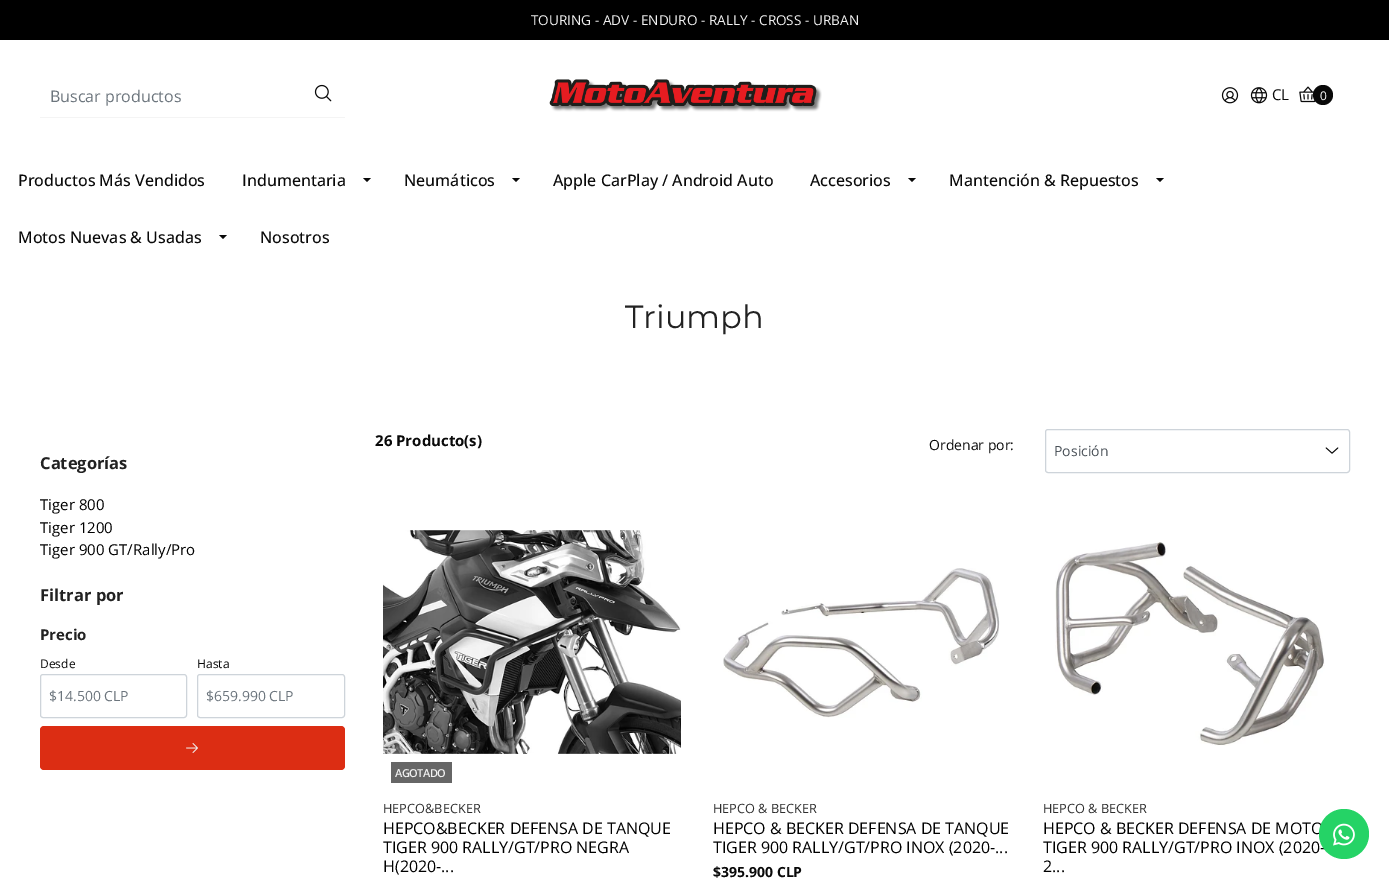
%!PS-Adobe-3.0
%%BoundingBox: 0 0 1389 879
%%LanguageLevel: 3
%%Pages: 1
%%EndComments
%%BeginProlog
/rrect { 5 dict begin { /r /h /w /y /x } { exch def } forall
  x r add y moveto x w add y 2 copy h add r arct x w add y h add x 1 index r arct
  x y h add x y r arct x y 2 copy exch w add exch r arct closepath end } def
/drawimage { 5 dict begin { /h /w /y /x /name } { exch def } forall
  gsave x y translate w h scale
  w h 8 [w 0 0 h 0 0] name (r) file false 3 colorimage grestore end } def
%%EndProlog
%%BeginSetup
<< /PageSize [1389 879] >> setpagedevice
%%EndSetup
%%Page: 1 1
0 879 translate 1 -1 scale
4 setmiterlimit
1 setgray
0 0 1389 879 rectfill
0 setgray
0 0 1389 40 rectfill
0.957 setgray
40 117 305 1 rectfill
(images/1.raw) 314 84 18 18 drawimage
(images/2.raw) 549 79 273 33 drawimage
(images/3.raw) 1221 87 18 17 drawimage
(images/4.raw) 1250 87 18 17 drawimage
(images/5.raw) 1299 86 17 17 drawimage
0.035 setgray
newpath 1323 95 10 0 360 arc closepath fill
newpath 363 178 moveto 371 178 lineto 367 182 lineto closepath fill
newpath 512 178 moveto 520 178 lineto 516 182 lineto closepath fill
newpath 908 178 moveto 916 178 lineto 912 182 lineto closepath fill
newpath 1156 178 moveto 1164 178 lineto 1160 182 lineto closepath fill
newpath 219 235 moveto 227 235 lineto 223 239 lineto closepath fill
0.808 0.831 0.855 setrgbcolor
40.5 674.5 146 43 2.5 rrect stroke
197.5 674.5 147 43 2.5 rrect stroke
0.863 0.176 0.075 setrgbcolor
40 726 305 44 4 rrect fill
(images/6.raw) 186 743 12 10 drawimage
(images/7.raw) 1325 447 14 7 drawimage
0.808 0.831 0.855 setrgbcolor
1045.5 429.5 304 43 2.5 rrect stroke
(images/8.raw) 383 530 298 224 drawimage
0.4 setgray
391 762 61 21 rectfill
(images/9.raw) 723 568 277 150 drawimage
(images/10.raw) 1055 542 270 204 drawimage
/OpenSans-Regular [13.6 0 0 -13.6 0 0] selectfont
0.945 setgray
531 25 moveto (TOURING - ADV - ENDURO - RALLY - CROSS - URBAN) show
/OpenSans-Regular [16 0 0 -16 0 0] selectfont
0.424 0.459 0.49 setrgbcolor
50 102 moveto (Buscar productos) show
/OpenSans-Regular [15 0 0 -15 0 0] selectfont
0.035 setgray
1272 100 moveto (CL) show
/OpenSans-Regular [12 0 0 -12 0 0] selectfont
1 setgray
1320 100 moveto (0) show
/OpenSans-Medium [16 0 0 -16 0 0] selectfont
0.035 setgray
18 186 moveto (Productos Más Vendidos) show
242 186 moveto (Indumentaria) show
404 186 moveto (Neumáticos) show
553 186 moveto (Apple CarPlay / Android Auto) show
810 186 moveto (Accesorios) show
949 186 moveto (Mantención & Repuestos) show
18 243 moveto (Motos Nuevas & Usadas) show
260 243 moveto (Nosotros) show
/Montserrat-Regular [32 0 0 -32 0 0] selectfont
0.133 setgray
625 328 moveto (Triumph) show
/OpenSans-Bold [16.5 0 0 -16.5 0 0] selectfont
40 469 moveto (Categorías) show
/OpenSans-Regular [15 0 0 -15 0 0] selectfont
0 setgray
40 510 moveto (Tiger 800) show
40 533 moveto (Tiger 1200) show
40 555 moveto (Tiger 900 GT/Rally/Pro) show
/OpenSans-Bold [16.5 0 0 -16.5 0 0] selectfont
0.133 setgray
40 601 moveto (Filtrar por) show
/OpenSans-Bold [15 0 0 -15 0 0] selectfont
40 640 moveto (Precio) show
/OpenSans-Regular [12 0 0 -12 0 0] selectfont
0.035 setgray
40 668 moveto (Desde) show
/OpenSans-Regular [14 0 0 -14 0 0] selectfont
0.424 0.459 0.49 setrgbcolor
49 701 moveto ($14.500 CLP) show
/OpenSans-Regular [12 0 0 -12 0 0] selectfont
0.035 setgray
197 668 moveto (Hasta) show
/OpenSans-Regular [14 0 0 -14 0 0] selectfont
0.424 0.459 0.49 setrgbcolor
206 701 moveto ($659.990 CLP) show
/OpenSans-Bold [15 0 0 -15 0 0] selectfont
0.035 setgray
375 446 moveto (26 Producto\(s\)) show
/OpenSans-Regular [14 0 0 -14 0 0] selectfont
929 450 moveto (Ordenar por:) show
0.286 0.314 0.341 setrgbcolor
1054 456 moveto (Posición) show
/OpenSans-SemiBold [11 0 0 -11 0 0] selectfont
0.945 setgray
395 777 moveto -0.5 0 (AGOTADO) ashow
/OpenSans-Regular [12.75 0 0 -12.75 0 0] selectfont
0.18 setgray
383 813 moveto (HEPCO&BECKER) show
/OpenSans-Regular [16 0 0 -16 0 0] selectfont
0 setgray
383 834 moveto (HEPCO&BECKER DEFENSA DE TANQUE) show
383 853 moveto (TIGER 900 RALLY/GT/PRO NEGRA) show
383 872 moveto (H\(2020-...) show
/OpenSans-Regular [12.75 0 0 -12.75 0 0] selectfont
0.18 setgray
713 813 moveto (HEPCO & BECKER) show
/OpenSans-Regular [16 0 0 -16 0 0] selectfont
0 setgray
713 834 moveto (HEPCO & BECKER DEFENSA DE TANQUE) show
713 853 moveto (TIGER 900 RALLY/GT/PRO INOX \(2020-...) show
/OpenSans-Bold [14 0 0 -14 0 0] selectfont
0.035 setgray
713 877 moveto ($395.900 CLP) show
/OpenSans-Regular [12.75 0 0 -12.75 0 0] selectfont
0.18 setgray
1043 813 moveto (HEPCO & BECKER) show
/OpenSans-Regular [16 0 0 -16 0 0] selectfont
0 setgray
1043 834 moveto (HEPCO & BECKER DEFENSA DE MOTO) show
1043 853 moveto (TIGER 900 RALLY/GT/PRO INOX \(2020-) show
1043 872 moveto (2...) show
0.145 0.827 0.4 setrgbcolor
newpath 1344 834 25 0 360 arc closepath fill
(images/11.raw) 1333 823 22 23 drawimage
showpage
%%EOF
